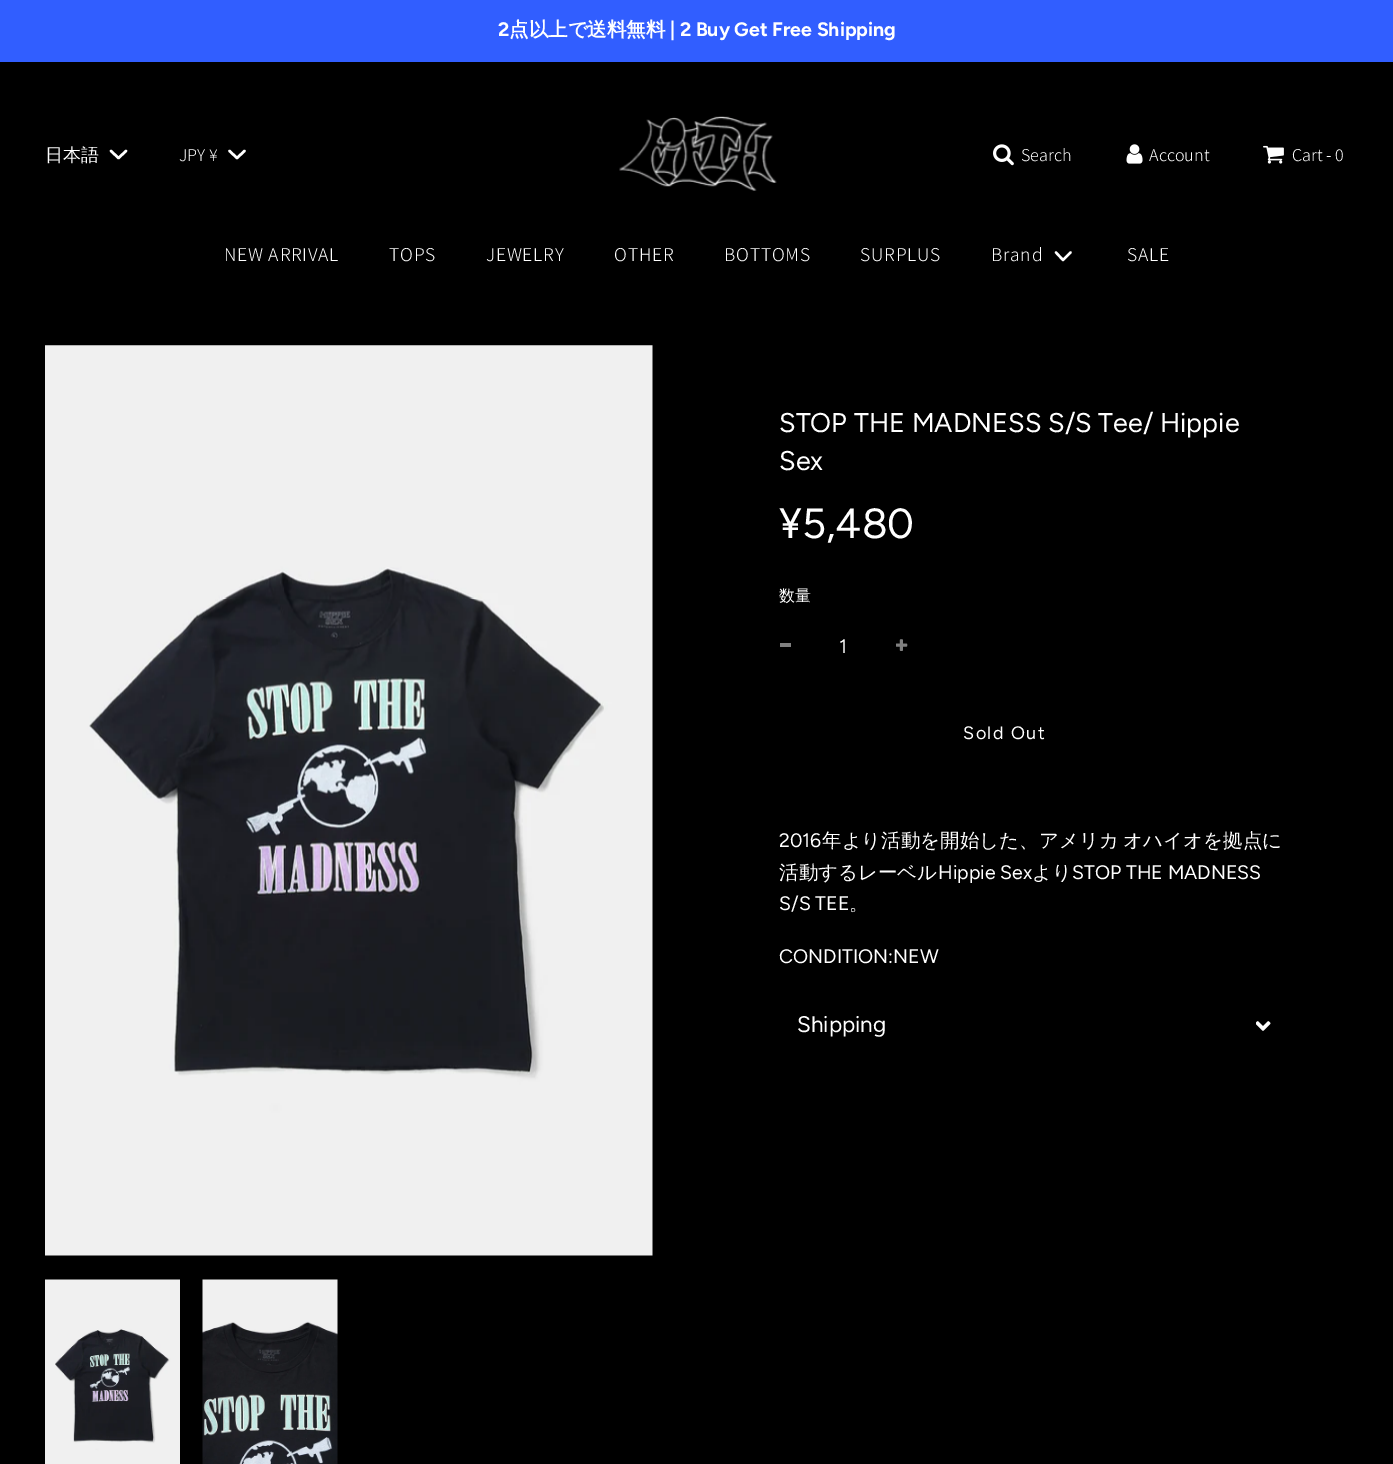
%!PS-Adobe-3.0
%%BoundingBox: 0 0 1393 1464
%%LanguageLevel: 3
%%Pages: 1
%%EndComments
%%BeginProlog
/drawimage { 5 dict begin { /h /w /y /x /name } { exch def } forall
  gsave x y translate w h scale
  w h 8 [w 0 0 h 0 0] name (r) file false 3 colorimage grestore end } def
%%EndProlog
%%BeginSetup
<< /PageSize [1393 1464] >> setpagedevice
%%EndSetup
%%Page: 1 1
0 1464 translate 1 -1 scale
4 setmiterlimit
0 setgray
0 0 1393 1464 rectfill
0.192 0.369 1 setrgbcolor
0 0 1393 62 rectfill
1 setgray
2.5 setlinewidth
1 setlinecap
1 setlinejoin
newpath 111 151 moveto 118.5 158 lineto 126 151 lineto stroke
newpath 229.5 151 moveto 237 158 lineto 244.5 151 lineto stroke
(images/1.raw) 619 116 158 75 drawimage
(images/2.raw) 993 144 21 22 drawimage
(images/3.raw) 1126 144 17 20 drawimage
(images/4.raw) 1263 145 21 19 drawimage
2.4 setlinewidth
newpath 1056 252.5 moveto 1063 260 lineto 1070.5 252.5 lineto stroke
(images/5.raw) 45 345 608 911 drawimage
(images/6.raw) 45 1279 135 185 drawimage
(images/7.raw) 202 1279 136 185 drawimage
0.502 setgray
780 643 11 4 rectfill
(images/8.raw) 896 639 12 12 drawimage
(images/9.raw) 1256 1021 15 10 drawimage
/Figtree-Bold [19.5 0 0 -19.5 0 0] selectfont
1 setgray
498 36 moveto (2) show
/WenQuanYiZenHei-Bold [19.5 0 0 -19.5 0 0] selectfont
509 36 moveto (点以上で送料無料) show
/Figtree-Bold [19.5 0 0 -19.5 0 0] selectfont
670 36 moveto (| 2 Buy Get Free Shipping) show
/WenQuanYiZenHei-Medium [18 0 0 -18 0 0] selectfont
45 161 moveto (日本語) show
/Assistant-Light [18 0 0 -18 0 0] selectfont
179 161 moveto (JPY ¥) show
1021 161 moveto (Search) show
1149 161 moveto (Account) show
1292 161 moveto (Cart - 0) show
/Assistant-Light [19.5 0 0 -19.5 0 0] selectfont
224 261 moveto 0.75 0 (NEW ARRIVAL) ashow
389 261 moveto 0.75 0 (TOPS) ashow
486 261 moveto 0.75 0 (JEWELRY) ashow
614 261 moveto 0.75 0 (OTHER) ashow
724 261 moveto 0.75 0 (BOTTOMS) ashow
860 261 moveto 0.75 0 (SURPLUS) ashow
991 261 moveto 0.75 0 (Brand) ashow
1127 261 moveto 0.75 0 (SALE) ashow
/Figtree-Regular [27 0 0 -27 0 0] selectfont
779 432 moveto (STOP THE MADNESS S/S Tee/ Hippie) show
779 470 moveto (Sex) show
/Figtree-Regular [42 0 0 -42 0 0] selectfont
779 538 moveto (¥5,480) show
/WenQuanYiZenHei-Medium [16 0 0 -16 0 0] selectfont
779 601 moveto (数量) show
/Figtree-Regular [19.5 0 0 -19.5 0 0] selectfont
839 653 moveto (1) show
/Figtree-Regular [18 0 0 -18 0 0] selectfont
963 739 moveto 1.5 0 (Sold Out) ashow
/Figtree-Regular [19.5 0 0 -19.5 0 0] selectfont
779 847 moveto (2016) show
/WenQuanYiZenHei-Medium [19.5 0 0 -19.5 0 0] selectfont
822 847 moveto -1 0 32 (年より活動を開始した、アメリカ オハイオを拠点に) widthshow
779 879 moveto (活動するレーベル) show
/Figtree-Regular [19.5 0 0 -19.5 0 0] selectfont
938 879 moveto (Hippie Sex) show
/WenQuanYiZenHei-Medium [19.5 0 0 -19.5 0 0] selectfont
1032 879 moveto (より) show
/Figtree-Regular [19.5 0 0 -19.5 0 0] selectfont
1072 879 moveto (STOP THE MADNESS) show
779 910 moveto (S/S TEE) show
/WenQuanYiZenHei-Medium [19.5 0 0 -19.5 0 0] selectfont
849 910 moveto (。) show
/Figtree-Regular [19.5 0 0 -19.5 0 0] selectfont
779 963 moveto (CONDITION:NEW) show
/Figtree-Regular [22.5 0 0 -22.5 0 0] selectfont
797 1032 moveto (Shipping) show
showpage
%%EOF
